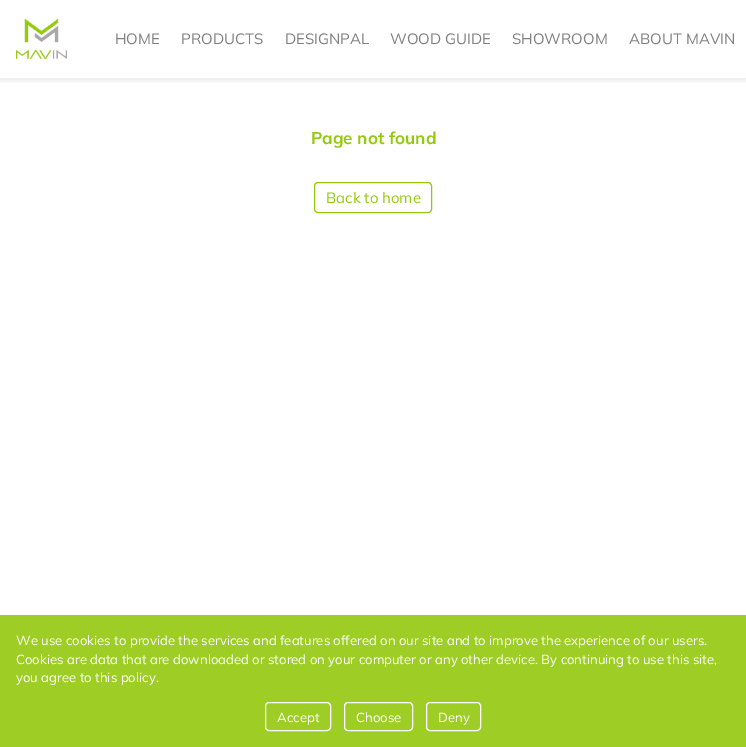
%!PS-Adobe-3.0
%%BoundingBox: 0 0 746 747
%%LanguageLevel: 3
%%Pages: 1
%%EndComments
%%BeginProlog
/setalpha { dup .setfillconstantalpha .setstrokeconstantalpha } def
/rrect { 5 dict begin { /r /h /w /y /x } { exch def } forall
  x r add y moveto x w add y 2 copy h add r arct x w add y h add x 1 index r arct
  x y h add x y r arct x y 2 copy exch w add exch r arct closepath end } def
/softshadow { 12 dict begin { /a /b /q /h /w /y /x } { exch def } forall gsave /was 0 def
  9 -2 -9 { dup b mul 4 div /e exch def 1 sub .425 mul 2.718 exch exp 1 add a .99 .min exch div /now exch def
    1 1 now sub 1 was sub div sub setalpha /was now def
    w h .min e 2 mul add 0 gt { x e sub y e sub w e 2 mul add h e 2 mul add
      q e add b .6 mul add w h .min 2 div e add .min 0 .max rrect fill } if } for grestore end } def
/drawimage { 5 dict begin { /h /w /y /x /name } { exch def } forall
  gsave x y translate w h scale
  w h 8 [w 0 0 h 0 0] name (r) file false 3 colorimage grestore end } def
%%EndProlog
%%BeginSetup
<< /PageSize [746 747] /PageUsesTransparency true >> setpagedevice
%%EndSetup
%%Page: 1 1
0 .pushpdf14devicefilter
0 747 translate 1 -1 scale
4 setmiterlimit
1 setgray
0 0 746 747 rectfill
gsave
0 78 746 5 rectclip
0 setgray
0 1 746 78 0 4 0.12 softshadow
grestore
(images/1.raw) 16 19 51 40 drawimage
0.576 0.788 0.051 setrgbcolor
314.5 182.5 117 30 3.5 rrect stroke
0.62 0.808 0.145 setrgbcolor
0 615 746 132 rectfill
1 setgray
265.5 702.5 65 28 3.5 rrect stroke
344.5 702.5 68 28 3.5 rrect stroke
426.5 702.5 54 28 3.5 rrect stroke
/Mulish-Regular [15 0 0 -15 0 0] selectfont
0.502 setgray
115 44 moveto (HOME) show
181 44 moveto (PRODUCTS) show
285 44 moveto (DESIGNPAL) show
390 44 moveto (WOOD GUIDE) show
512 44 moveto (SHOWROOM) show
629 44 moveto (ABOUT MAVIN) show
/Mulish-Bold [17 0 0 -17 0 0] selectfont
0.576 0.788 0.051 setrgbcolor
311 144 moveto (Page not found) show
/Mulish-Regular [15 0 0 -15 0 0] selectfont
326 203 moveto (Back to home) show
/Mulish-Regular [13.12 0 0 -13.12 0 0] selectfont
1 setgray
16 645 moveto (We use cookies to provide the services and features offered on our site and to improve the experience of our users.) show
16 664 moveto (Cookies are data that are downloaded or stored on your computer or any other device. By continuing to use this site,) show
16 682 moveto (you agree to this policy.) show
277 722 moveto (Accept) show
356 722 moveto (Choose) show
438 722 moveto (Deny) show
.poppdf14devicefilter showpage
%%EOF
